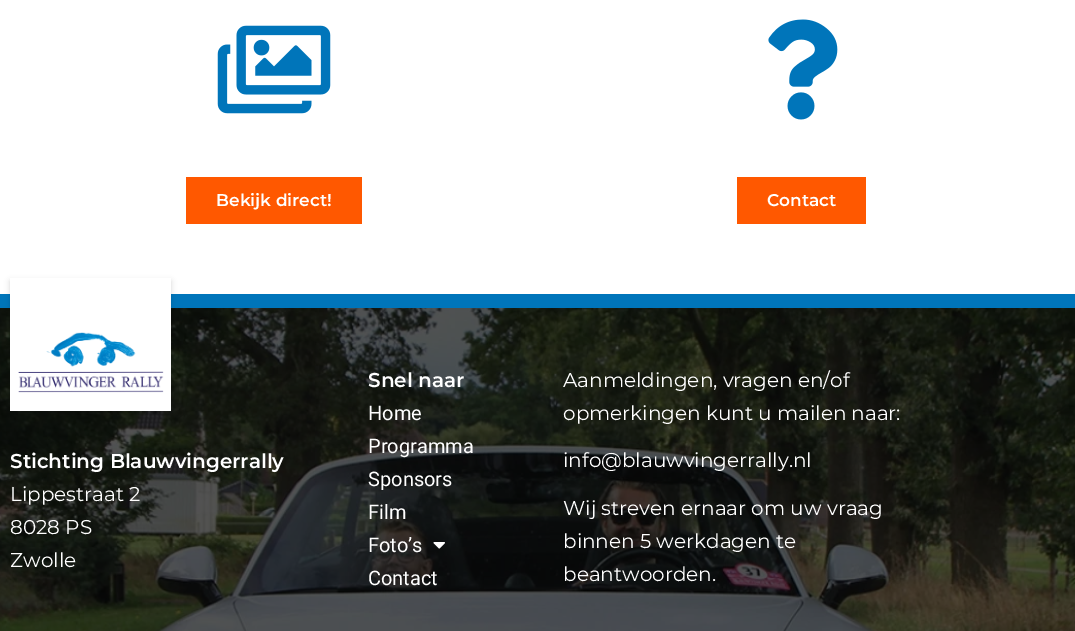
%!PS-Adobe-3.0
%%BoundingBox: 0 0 1075 631
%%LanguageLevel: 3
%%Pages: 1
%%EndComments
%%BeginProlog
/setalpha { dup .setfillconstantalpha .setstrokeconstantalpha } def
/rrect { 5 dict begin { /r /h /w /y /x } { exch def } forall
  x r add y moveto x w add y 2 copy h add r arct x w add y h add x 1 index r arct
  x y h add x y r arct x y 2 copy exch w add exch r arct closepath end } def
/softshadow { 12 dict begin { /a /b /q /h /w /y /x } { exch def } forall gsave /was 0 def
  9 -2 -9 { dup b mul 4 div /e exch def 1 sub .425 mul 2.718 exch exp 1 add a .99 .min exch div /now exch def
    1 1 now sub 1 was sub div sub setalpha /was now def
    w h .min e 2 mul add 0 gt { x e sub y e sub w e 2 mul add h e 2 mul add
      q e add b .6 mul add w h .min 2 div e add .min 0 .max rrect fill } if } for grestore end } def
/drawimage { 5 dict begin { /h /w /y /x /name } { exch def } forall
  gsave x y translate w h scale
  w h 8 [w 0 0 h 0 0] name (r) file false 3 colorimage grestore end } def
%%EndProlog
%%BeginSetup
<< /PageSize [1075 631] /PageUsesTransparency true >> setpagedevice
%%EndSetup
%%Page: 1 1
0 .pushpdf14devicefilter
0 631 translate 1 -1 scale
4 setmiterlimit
1 setgray
0 0 1075 631 rectfill
(images/1.raw) 217 25 114 89 drawimage
1 0.345 0 setrgbcolor
186 177 176 47 rectfill
(images/2.raw) 768 19 70 101 drawimage
737 177 129 47 rectfill
(images/3.raw) 0 308 1075 323 drawimage
0 0.459 0.729 setrgbcolor
0 294 1075 14 rectfill
0 setgray
10 281 161 133 0 3 0.16 softshadow
1 setgray
10 278 161 133 rectfill
(images/4.raw) 18 332 146 61 drawimage
(images/5.raw) 433 542 12 7 drawimage
/Montserrat-SemiBold [17 0 0 -17 0 0] selectfont
216 206 moveto (Bekijk direct!) show
767 206 moveto (Contact) show
/Montserrat-SemiBold [20 0 0 -20 0 0] selectfont
10 468 moveto (Stichting Blauwvingerrally) show
/Montserrat-Regular [20 0 0 -20 0 0] selectfont
10 501 moveto (Lippestraat 2) show
10 534 moveto (8028 PS) show
10 567 moveto (Zwolle) show
/Montserrat-SemiBold [20 0 0 -20 0 0] selectfont
368 387 moveto (Snel naar) show
/Roboto-Regular [20 0 0 -20 0 0] selectfont
368 420 moveto (Home) show
368 453 moveto (Programma) show
368 486 moveto (Sponsors) show
368 519 moveto (Film) show
368 552 moveto (Foto’s) show
368 585 moveto (Contact) show
/Montserrat-Regular [20 0 0 -20 0 0] selectfont
563 387 moveto (Aanmeldingen, vragen en/of) show
563 420 moveto (opmerkingen kunt u mailen naar:) show
563 467 moveto (info@blauwvingerrally.nl) show
563 515 moveto (Wij streven ernaar om uw vraag) show
563 548 moveto (binnen 5 werkdagen te) show
563 581 moveto (beantwoorden.) show
.poppdf14devicefilter showpage
%%EOF
